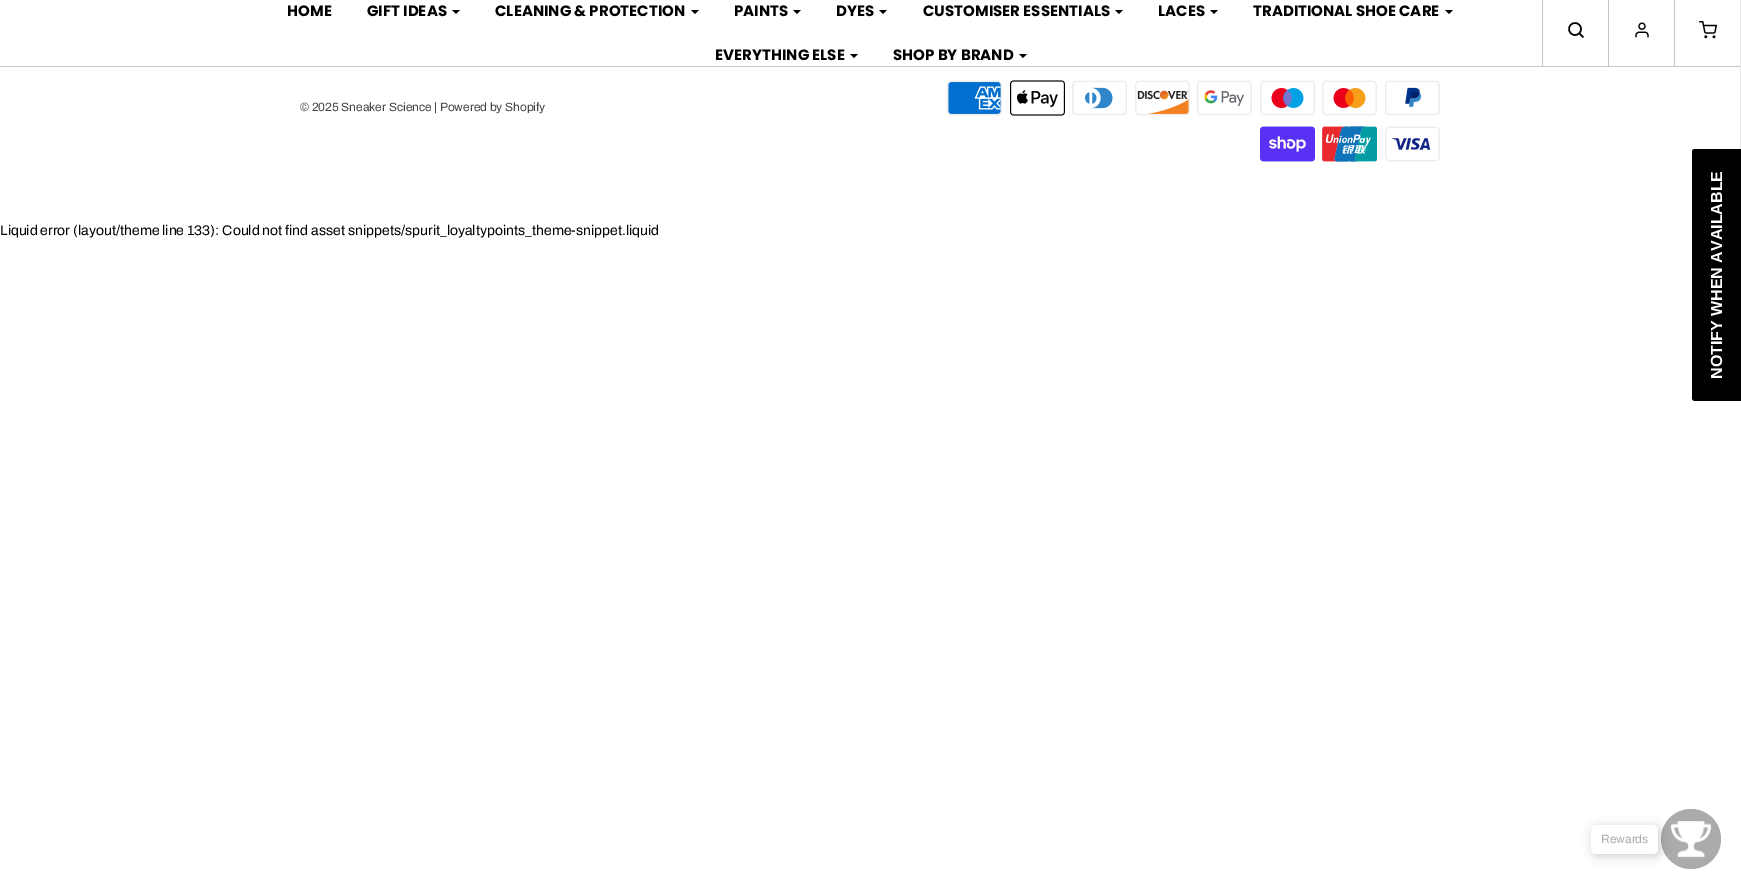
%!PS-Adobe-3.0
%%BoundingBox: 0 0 1741 889
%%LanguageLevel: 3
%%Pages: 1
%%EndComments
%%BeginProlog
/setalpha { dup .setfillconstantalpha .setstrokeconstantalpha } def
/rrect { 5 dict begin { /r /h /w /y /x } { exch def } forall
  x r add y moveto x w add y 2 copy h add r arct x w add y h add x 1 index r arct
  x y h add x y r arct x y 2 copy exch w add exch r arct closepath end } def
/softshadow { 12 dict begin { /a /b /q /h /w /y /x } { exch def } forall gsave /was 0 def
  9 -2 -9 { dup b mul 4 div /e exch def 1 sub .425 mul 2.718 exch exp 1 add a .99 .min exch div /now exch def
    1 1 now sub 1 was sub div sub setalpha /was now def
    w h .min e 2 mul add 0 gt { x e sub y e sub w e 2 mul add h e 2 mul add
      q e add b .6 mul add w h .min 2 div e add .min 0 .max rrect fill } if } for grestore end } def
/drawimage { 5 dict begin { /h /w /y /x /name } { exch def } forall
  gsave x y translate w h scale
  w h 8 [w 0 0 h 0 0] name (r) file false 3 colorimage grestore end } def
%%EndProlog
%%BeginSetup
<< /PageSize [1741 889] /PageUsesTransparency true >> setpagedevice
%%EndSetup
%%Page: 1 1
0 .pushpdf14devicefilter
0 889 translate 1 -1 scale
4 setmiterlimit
1 setgray
0 0 1741 889 rectfill
0.902 setgray
1740 0 1 149 rectfill
0.776 setgray
0 66 1740 1 rectfill
0 setgray
newpath 452 10 moveto 460 10 lineto 456 14 lineto closepath fill
newpath 691 10 moveto 699 10 lineto 695 14 lineto closepath fill
newpath 793 10 moveto 801 10 lineto 797 14 lineto closepath fill
newpath 879 10 moveto 887 10 lineto 883 14 lineto closepath fill
newpath 1115 10 moveto 1123 10 lineto 1119 14 lineto closepath fill
newpath 1210 10 moveto 1218 10 lineto 1214 14 lineto closepath fill
newpath 1445 10 moveto 1453 10 lineto 1449 14 lineto closepath fill
newpath 850 54 moveto 858 54 lineto 854 58 lineto closepath fill
newpath 1019 54 moveto 1027 54 lineto 1023 58 lineto closepath fill
0.776 setgray
1542 0 1 66 rectfill
0 setgray
1.5 setlinewidth
newpath 1575 29 6 0 360 arc closepath stroke
1 setlinecap
1 setlinejoin
newpath 1583 37 moveto 1579.5 33.5 lineto stroke
0.776 setgray
1608 0 1 66 rectfill
(images/1.raw) 1635 22 14 16 drawimage
1674 0 1 66 rectfill
(images/2.raw) 1699 21 18 18 drawimage
(images/3.raw) 947 80 55 36 drawimage
(images/4.raw) 1010 80 55 36 drawimage
(images/5.raw) 1072 80 55 36 drawimage
(images/6.raw) 1135 80 55 36 drawimage
(images/7.raw) 1197 80 55 36 drawimage
(images/8.raw) 1260 80 55 36 drawimage
(images/9.raw) 1322 80 55 36 drawimage
(images/10.raw) 1385 80 55 36 drawimage
(images/11.raw) 1260 126 55 36 drawimage
(images/12.raw) 1322 126 55 36 drawimage
(images/13.raw) 1385 126 55 36 drawimage
0 setgray
newpath 1693 398 moveto 1693 152 lineto 1693 151 1694 150 1695 150 curveto 1741 150 lineto 1741 400 lineto 1695 400 lineto 1694 400 1693 399 1693 398 curveto closepath fill
newpath 1692 398 moveto 1692 152 lineto 1692 150 1693 149 1695 149 curveto 1741 149 lineto 1741 401 lineto 1695 401 lineto 1693 401 1692 399 1692 398 curveto closepath 1693 398 moveto 1693 152 lineto 1693 151 1694 150 1695 150 curveto 1741 150 lineto 1741 400 lineto 1695 400 lineto 1694 400 1693 399 1693 398 curveto closepath eofill
0.671 setgray
newpath 1691 839 30 0 360 arc closepath fill
(images/14.raw) 1671 821 40 37 drawimage
0 setgray
1593 827 67 29 5 5 0.2 softshadow
1 setgray
1591 825 67 29 5 rrect fill
/Poppins-Bold [15 0 0 -15 0 0] selectfont
0 setgray
287 16 moveto (HOME) show
367 16 moveto (GIFT IDEAS) show
495 16 moveto (CLEANING & PROTECTION) show
734 16 moveto (PAINTS) show
836 16 moveto (DYES) show
923 16 moveto (CUSTOMISER ESSENTIALS) show
1158 16 moveto (LACES) show
1253 16 moveto (TRADITIONAL SHOE CARE) show
715 60 moveto (EVERYTHING ELSE) show
893 60 moveto (SHOP BY BRAND) show
/Archivo-Regular [12 0 0 -12 0 0] selectfont
0.275 setgray
300 111 moveto (© 2025 Sneaker Science | Powered by Shopify) show
/Archivo-Regular [14 0 0 -14 0 0] selectfont
0 setgray
0 235 moveto (Liquid error \(layout/theme line 133\): Could not find asset snippets/spurit_loyaltypoints_theme-snippet.liquid) show
/LiberationSans-Bold [16 0 0 -16 0 0] selectfont
1 setgray
gsave 1722 379 translate -90 rotate 0 0 moveto (NOTIFY WHEN AVAILABLE) show grestore
/Archivo-Regular [12 0 0 -12 0 0] selectfont
0.671 setgray
1601 843 moveto (Rewards) show
.poppdf14devicefilter showpage
%%EOF
